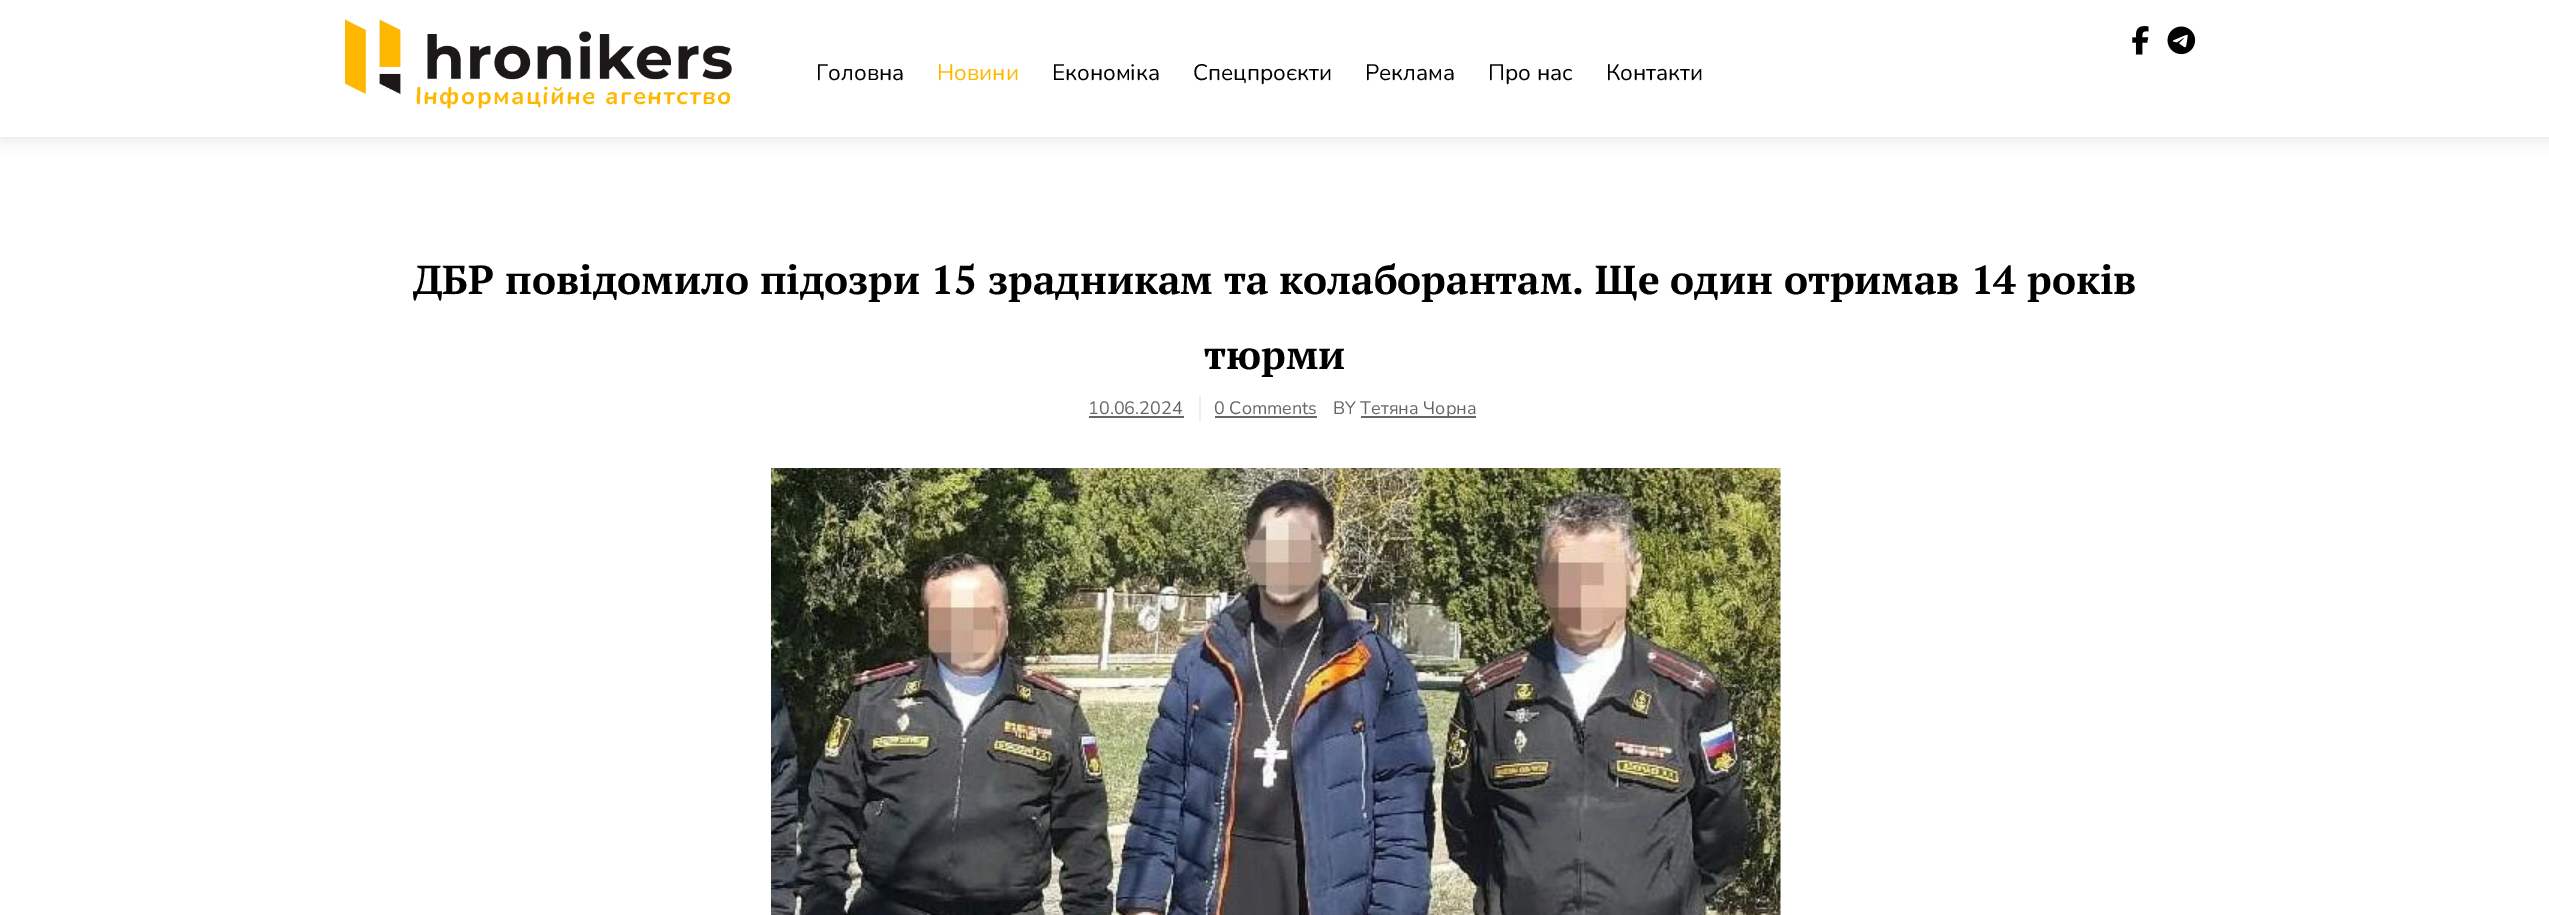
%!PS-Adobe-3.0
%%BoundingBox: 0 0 2549 915
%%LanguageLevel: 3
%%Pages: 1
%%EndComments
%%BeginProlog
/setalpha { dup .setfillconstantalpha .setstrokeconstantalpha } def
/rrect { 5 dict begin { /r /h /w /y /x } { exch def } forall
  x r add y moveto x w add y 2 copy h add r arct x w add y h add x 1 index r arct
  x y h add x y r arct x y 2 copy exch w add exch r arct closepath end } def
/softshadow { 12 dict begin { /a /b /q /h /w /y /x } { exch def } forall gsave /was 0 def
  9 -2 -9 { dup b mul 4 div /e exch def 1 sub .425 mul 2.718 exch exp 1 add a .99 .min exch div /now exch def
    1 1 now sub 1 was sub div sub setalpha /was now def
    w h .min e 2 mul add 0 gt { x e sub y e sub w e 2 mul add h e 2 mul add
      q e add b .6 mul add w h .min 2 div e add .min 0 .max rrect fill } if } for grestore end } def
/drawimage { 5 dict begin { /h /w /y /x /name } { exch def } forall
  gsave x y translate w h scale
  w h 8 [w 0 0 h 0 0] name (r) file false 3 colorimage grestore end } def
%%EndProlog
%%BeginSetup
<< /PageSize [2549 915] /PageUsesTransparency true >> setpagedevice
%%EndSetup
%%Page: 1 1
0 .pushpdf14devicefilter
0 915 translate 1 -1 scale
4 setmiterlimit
1 setgray
0 0 2549 915 rectfill
gsave
newpath 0 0 moveto 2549 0 lineto 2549 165 lineto 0 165 lineto closepath 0 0 moveto 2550 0 lineto 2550 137 lineto 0 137 lineto closepath eoclip newpath
0 setgray
0 0 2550 137 0 9 0.12 softshadow
grestore
(images/1.raw) 2132 26 17 29 drawimage
(images/2.raw) 2167 26 29 29 drawimage
0.933 setgray
1199 396 2 26 rectfill
0.4 setgray
1089 416 95 2 rectfill
1215 416 102 2 rectfill
1361 416 115 2 rectfill
(images/4.raw) 771 468 1010 447 drawimage
/Nunito-Regular [22.5 0 0 -22.5 0 0] selectfont
0 setgray
816 80 moveto (Головна) show
1 0.722 0 setrgbcolor
937 80 moveto (Новини) show
0 setgray
1052 80 moveto (Економіка) show
1193 80 moveto (Спецпроєкти) show
1365 80 moveto (Реклама) show
1488 80 moveto (Про нас) show
1606 80 moveto (Контакти) show
/Nunito-Bold [24 0 0 -24 0 0] selectfont
1 0.722 0 setrgbcolor
415 104 moveto 1.5 0 (Інформаційне агентство) ashow
(images/3.raw) 345 19 387 76 drawimage
/PTSerif-Bold [40.5 0 0 -40.5 0 0] selectfont
0 setgray
413 294 moveto (ДБР повідомило підозри 15 зрадникам та колаборантам. Ще один отримав 14 років) show
1204 369 moveto (тюрми) show
/Nunito-Regular [18 0 0 -18 0 0] selectfont
0.4 setgray
1088 414 moveto (10.06.2024) show
1214 414 moveto (0 Comments) show
1333 414 moveto (BY) show
1360 414 moveto (Тетяна Чорна) show
.poppdf14devicefilter showpage
%%EOF
